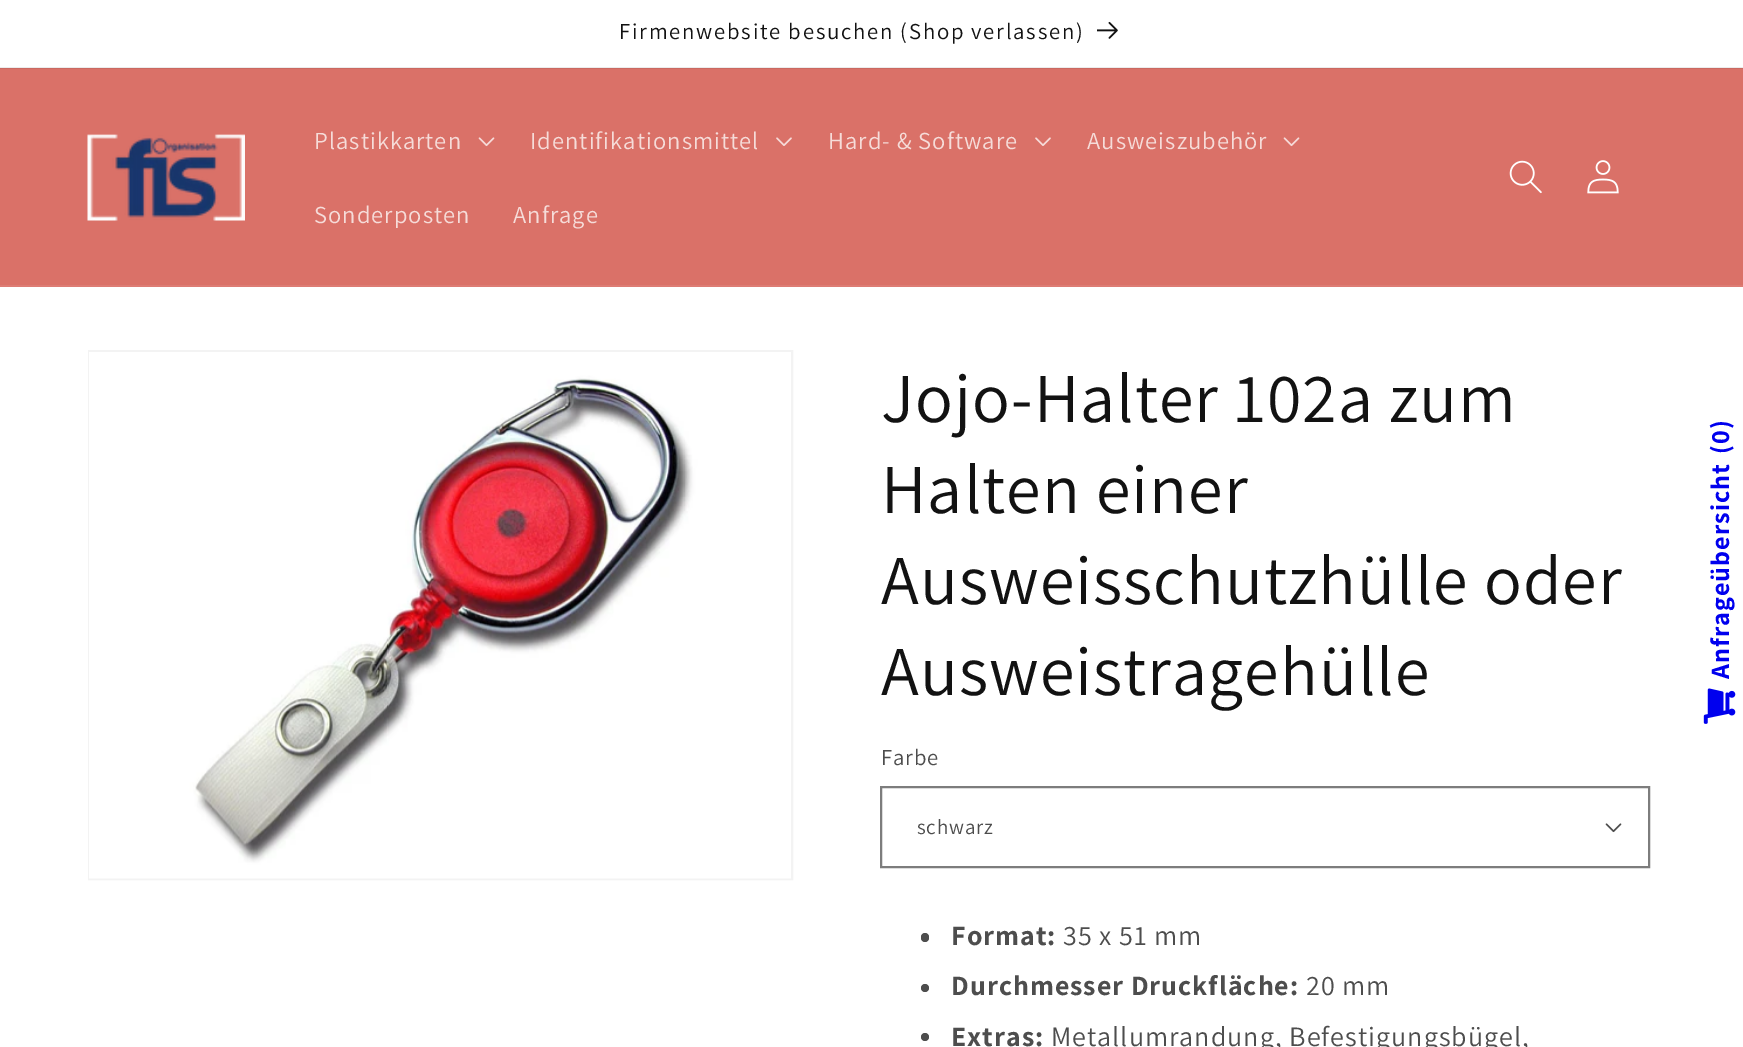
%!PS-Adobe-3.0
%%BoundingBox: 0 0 1743 1047
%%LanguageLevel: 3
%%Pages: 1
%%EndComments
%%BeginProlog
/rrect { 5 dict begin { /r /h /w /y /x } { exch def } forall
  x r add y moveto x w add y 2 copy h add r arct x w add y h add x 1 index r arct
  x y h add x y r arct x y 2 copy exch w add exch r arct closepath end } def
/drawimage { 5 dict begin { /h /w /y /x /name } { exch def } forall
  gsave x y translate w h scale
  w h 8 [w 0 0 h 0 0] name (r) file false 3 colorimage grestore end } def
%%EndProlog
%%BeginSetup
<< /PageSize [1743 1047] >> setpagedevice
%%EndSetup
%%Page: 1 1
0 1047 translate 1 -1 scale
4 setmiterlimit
1 setgray
0 0 1743 1047 rectfill
0.925 setgray
0 67 1743 1 rectfill
(images/1.raw) 1097 21 21 18 drawimage
0.855 0.443 0.408 setrgbcolor
0 69 1743 216 rectfill
0.792 0.412 0.38 setrgbcolor
0 68 1743 1 rectfill
0.867 0.486 0.455 setrgbcolor
0 285 1743 2 rectfill
(images/2.raw) 87 134 158 87 drawimage
(images/3.raw) 478 137 17 10 drawimage
(images/4.raw) 776 137 16 9 drawimage
(images/4.raw) 1035 137 16 9 drawimage
(images/3.raw) 1283 137 17 10 drawimage
(images/5.raw) 1509 160 33 34 drawimage
(images/6.raw) 1587 160 32 34 drawimage
0.953 setgray
2 setlinewidth
89 351 703 528 rectstroke
(images/7.raw) 89 352 702 527 drawimage
(images/8.raw) 1605 823 17 10 drawimage
0.49 setgray
881 787 768 80 rectstroke
0.302 setgray
921 933 8 9 4 rrect fill
newpath 925 988 4 0 360 arc closepath fill
newpath 925 1037 4 0 360 arc closepath fill
(images/9.raw) 1703 688 33 36 drawimage
/Assistant-Regular [22.75 0 0 -22.75 0 0] selectfont
0.071 setgray
619 39 moveto 1.75 0 (Firmenwebsite besuchen \(Shop verlassen\)) ashow
/Assistant-Regular [24.5 0 0 -24.5 0 0] selectfont
0.965 0.863 0.851 setrgbcolor
314 149 moveto 1.05 0 (Plastikkarten) ashow
530 149 moveto 1.05 0 (Identifikationsmittel) ashow
828 149 moveto 1.05 0 (Hard- & Software) ashow
1087 149 moveto 1.05 0 (Ausweiszubehör) ashow
314 223 moveto 1.05 0 (Sonderposten) ashow
513 223 moveto 1.05 0 (Anfrage) ashow
/Assistant-Regular [70 0 0 -70 0 0] selectfont
0.071 setgray
881 422 moveto 1.05 0 (Jojo-Halter 102a zum) ashow
881 513 moveto 1.05 0 (Halten einer) ashow
881 604 moveto 1.05 0 (Ausweisschutzhülle oder) ashow
881 695 moveto 1.05 0 (Ausweistragehülle) ashow
/Assistant-Regular [22.75 0 0 -22.75 0 0] selectfont
0.302 setgray
881 765 moveto 0.75 0 (Farbe) ashow
/Assistant-Regular [21 0 0 -21 0 0] selectfont
917 834 moveto 0.75 0 (schwarz) ashow
/Assistant-Bold [28 0 0 -28 0 0] selectfont
951 945 moveto 1.05 0 (Format:) ashow
/Assistant-Regular [28 0 0 -28 0 0] selectfont
1063 945 moveto 1.05 0 (35 x 51 mm) ashow
/Assistant-Bold [28 0 0 -28 0 0] selectfont
951 995 moveto 1.05 0 (Durchmesser Druckfläche:) ashow
/Assistant-Regular [28 0 0 -28 0 0] selectfont
1306 995 moveto 1.05 0 (20 mm) ashow
/Assistant-Bold [28 0 0 -28 0 0] selectfont
951 1046 moveto 1.05 0 (Extras:) ashow
/Assistant-Regular [28 0 0 -28 0 0] selectfont
1051 1046 moveto 1.05 0 (Metallumrandung, Befestigungsbügel,) ashow
/Assistant-Bold [26.25 0 0 -26.25 0 0] selectfont
0 0 0.933 setrgbcolor
gsave 1729 429 translate -90 rotate 0 0 moveto 1.05 0 (\)) ashow grestore
gsave 1729 444 translate -90 rotate 0 0 moveto 1.05 0 (0) ashow grestore
gsave 1729 454 translate -90 rotate 0 0 moveto 1.05 0 (\() ashow grestore
gsave 1729 679 translate -90 rotate 0 0 moveto 1.05 0 (Anfrageübersicht) ashow grestore
showpage
%%EOF
